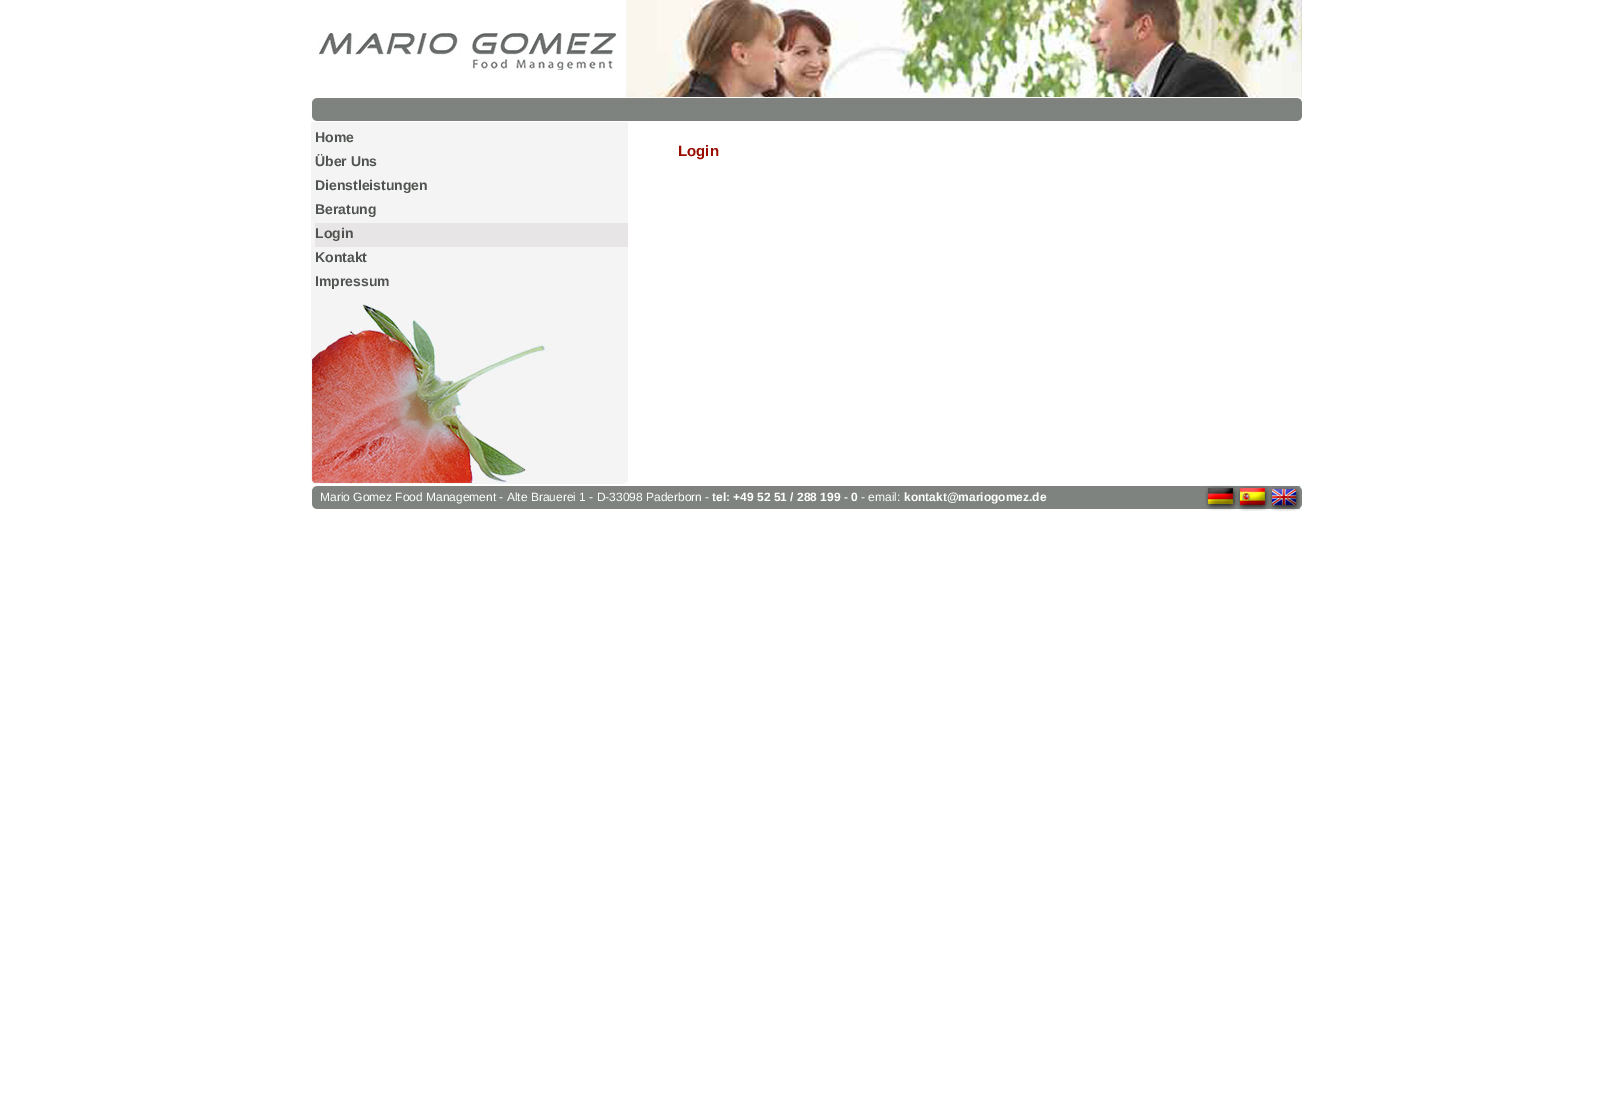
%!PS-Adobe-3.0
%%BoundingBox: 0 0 1612 1115
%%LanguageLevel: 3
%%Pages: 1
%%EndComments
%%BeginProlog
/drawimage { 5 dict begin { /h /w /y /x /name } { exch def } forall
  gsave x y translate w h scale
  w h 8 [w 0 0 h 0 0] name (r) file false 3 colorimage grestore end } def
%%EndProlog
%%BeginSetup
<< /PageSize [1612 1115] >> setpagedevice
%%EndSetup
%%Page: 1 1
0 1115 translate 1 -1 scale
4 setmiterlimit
1 setgray
0 0 1612 1115 rectfill
(images/1.raw) 318 0 310 97 drawimage
(images/2.raw) 628 0 675 97 drawimage
(images/3.raw) 310 97 992 24 drawimage
0.957 setgray
311 122 317 181 rectfill
0.906 0.898 0.898 setrgbcolor
315 223 313 24 rectfill
(images/4.raw) 310 303 318 182 drawimage
(images/3.raw) 310 485 992 24 drawimage
(images/5.raw) 1204 485 33 26 drawimage
(images/6.raw) 1237 485 33 26 drawimage
(images/7.raw) 1270 485 30 26 drawimage
/LiberationSans-Bold [14 0 0 -14 0 0] selectfont
0.314 0.329 0.318 setrgbcolor
315 142 moveto (Home) show
315 166 moveto (Über Uns) show
315 190 moveto (Dienstleistungen) show
315 214 moveto (Beratung) show
315 238 moveto (Login) show
315 262 moveto (Kontakt) show
315 286 moveto (Impressum) show
/LiberationSans-Bold [15 0 0 -15 0 0] selectfont
0.6 0.051 0 setrgbcolor
678 156 moveto (Login) show
/LiberationSans-Regular [12 0 0 -12 0 0] selectfont
1 setgray
320 501 moveto (Mario Gomez Food Management - Alte Brauerei 1 - D-33098 Paderborn -) show
/LiberationSans-Bold [12 0 0 -12 0 0] selectfont
712 501 moveto (tel: +49 52 51 / 288 199 - 0) show
/LiberationSans-Regular [12 0 0 -12 0 0] selectfont
861 501 moveto (- email:) show
/LiberationSans-Bold [12 0 0 -12 0 0] selectfont
904 501 moveto (kontakt@mariogomez.de) show
showpage
%%EOF
